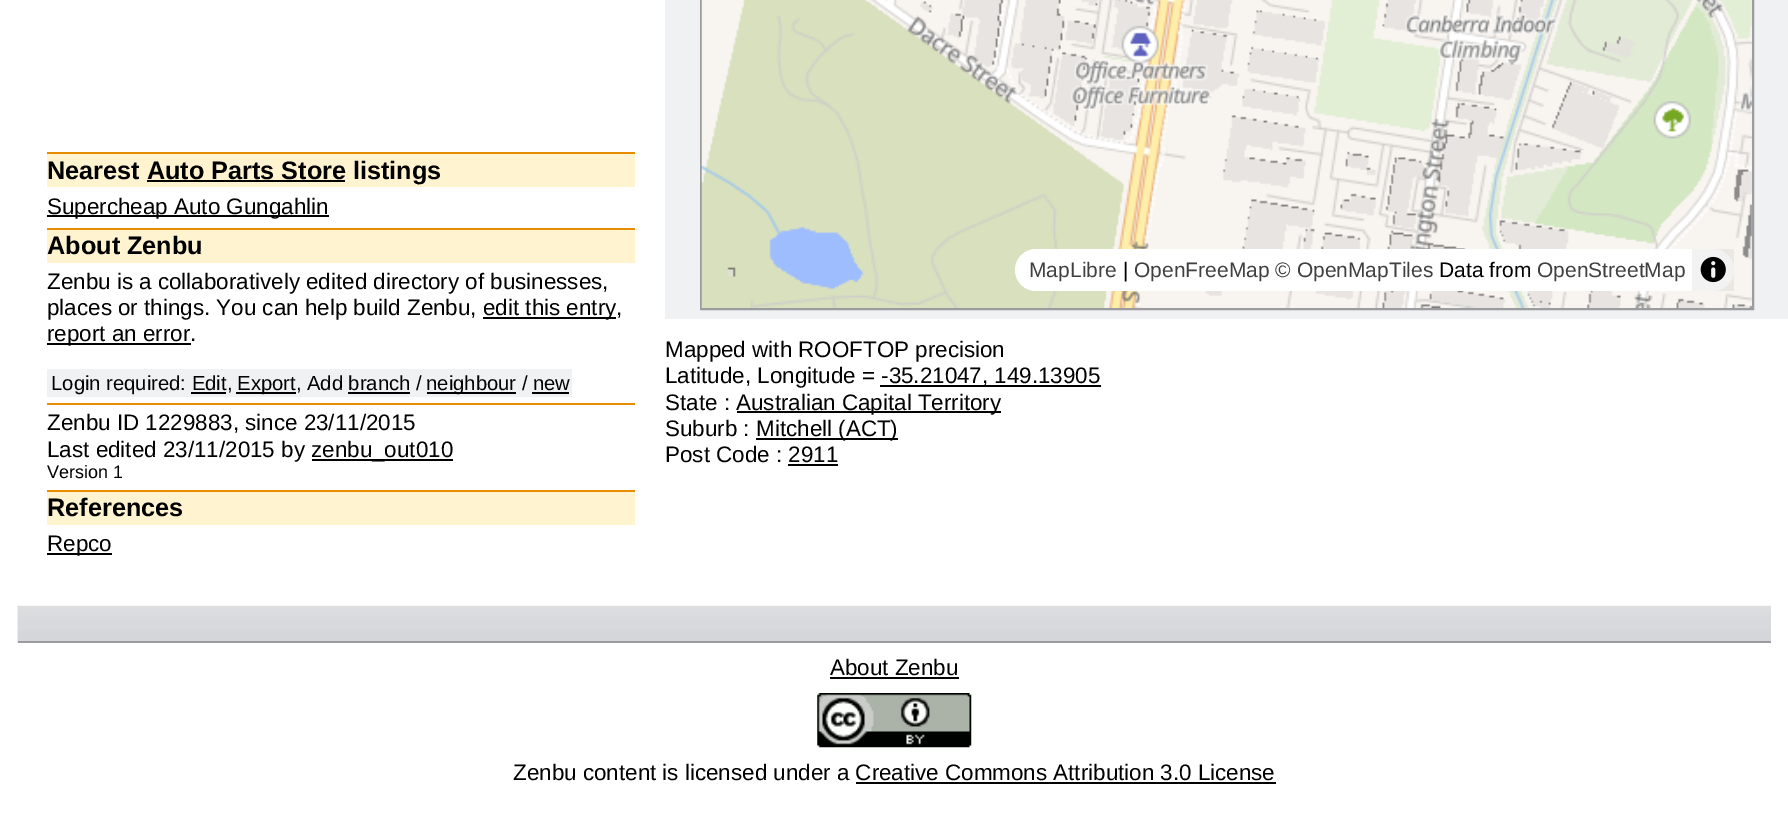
%!PS-Adobe-3.0
%%BoundingBox: 0 0 1788 820
%%LanguageLevel: 3
%%Pages: 1
%%EndComments
%%BeginProlog
/setalpha { dup .setfillconstantalpha .setstrokeconstantalpha } def
/rrect { 5 dict begin { /r /h /w /y /x } { exch def } forall
  x r add y moveto x w add y 2 copy h add r arct x w add y h add x 1 index r arct
  x y h add x y r arct x y 2 copy exch w add exch r arct closepath end } def
/drawimage { 5 dict begin { /h /w /y /x /name } { exch def } forall
  gsave x y translate w h scale
  w h 8 [w 0 0 h 0 0] name (r) file false 3 colorimage grestore end } def
%%EndProlog
%%BeginSetup
<< /PageSize [1788 820] /PageUsesTransparency true >> setpagedevice
%%EndSetup
%%Page: 1 1
0 .pushpdf14devicefilter
0 820 translate 1 -1 scale
4 setmiterlimit
1 setgray
0 0 1788 820 rectfill
1 0.957 0.812 setrgbcolor
47 154 588 33 rectfill
0.906 0.553 0 setrgbcolor
47 152 588 2 rectfill
0 setgray
147 180 198 2 rectfill
47 215 282 2 rectfill
1 0.957 0.812 setrgbcolor
47 230 588 33 rectfill
0.906 0.553 0 setrgbcolor
47 228 588 2 rectfill
0 setgray
483 317 133 2 rectfill
47 343 144 2 rectfill
0.941 0.945 0.953 setrgbcolor
47 369 525 28 rectfill
0 setgray
191 392 35 2 rectfill
236 392 60 2 rectfill
348 392 62 2 rectfill
427 392 89 2 rectfill
532 392 37 2 rectfill
0.906 0.553 0 setrgbcolor
47 403 588 2 rectfill
0 setgray
312 459 141 2 rectfill
1 0.957 0.812 setrgbcolor
47 492 588 33 rectfill
0.906 0.553 0 setrgbcolor
47 490 588 2 rectfill
0 setgray
47 553 65 2 rectfill
0.941 0.945 0.953 setrgbcolor
665 0 1123 319 rectfill
0.608 0.612 0.624 setrgbcolor
2 setlinewidth
701 -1 1052 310 rectstroke
(images/1.raw) 701 0 1051 308 drawimage
1 setgray
1015 249 719 42 21 rrect fill
0.05 setalpha
0 setgray
1692 249 42 42 rectfill
1 setalpha
(images/2.raw) 1700 256 26 27 drawimage
880 385 221 2 rectfill
737 411 264 2 rectfill
756 438 142 2 rectfill
788 464 50 2 rectfill
(images/3.raw) 17 605 1754 38 drawimage
0.608 0.612 0.624 setrgbcolor
18 641 1753 2 rectfill
0 setgray
830 677 129 2 rectfill
(images/4.raw) 817 693 155 55 drawimage
856 782 420 2 rectfill
/LiberationSans-Bold [25.25 0 0 -25.25 0 0] selectfont
47 179 moveto (Nearest Auto Parts Store listings) show
/LiberationSans-Regular [22.4 0 0 -22.4 0 0] selectfont
47 214 moveto (Supercheap Auto Gungahlin) show
/LiberationSans-Bold [25.25 0 0 -25.25 0 0] selectfont
47 254 moveto (About Zenbu) show
/LiberationSans-Regular [22.4 0 0 -22.4 0 0] selectfont
47 289 moveto (Zenbu is a collaboratively edited directory of businesses,) show
47 315 moveto (places or things. You can help build Zenbu,) show
483 315 moveto (edit this entry,) show
47 341 moveto (report an error.) show
/LiberationSans-Regular [20.25 0 0 -20.25 0 0] selectfont
51 390 moveto (Login required: Edit,) show
237 390 moveto (Export, Add branch /) show
426 390 moveto (neighbour / new) show
/LiberationSans-Regular [22.4 0 0 -22.4 0 0] selectfont
47 430 moveto (Zenbu ID 1229883, since 23/11/2015) show
47 457 moveto (Last edited 23/11/2015 by) show
311 457 moveto (zenbu_out010) show
/LiberationSans-Regular [18 0 0 -18 0 0] selectfont
47 478 moveto (Version 1) show
/LiberationSans-Bold [25.25 0 0 -25.25 0 0] selectfont
47 516 moveto (References) show
/LiberationSans-Regular [22.4 0 0 -22.4 0 0] selectfont
47 551 moveto (Repco) show
/LiberationSans-Regular [21 0 0 -21 0 0] selectfont
0.251 setgray
1029 277 moveto (MapLibre) show
0 setgray
1123 277 moveto (|) show
0.251 setgray
1134 277 moveto (OpenFreeMap © OpenMapTiles) show
0 setgray
1439 277 moveto (Data from) show
0.251 setgray
1537 277 moveto (OpenStreetMap) show
/LiberationSans-Regular [22.4 0 0 -22.4 0 0] selectfont
0 setgray
665 357 moveto (Mapped with ROOFTOP precision) show
665 383 moveto (Latitude, Longitude = -35.21047) show
982 383 moveto (, 149.13905) show
665 410 moveto (State :) show
736 410 moveto (Australian Capital Territory) show
665 436 moveto (Suburb :) show
756 436 moveto (Mitchell \(ACT\)) show
665 462 moveto (Post Code : 2911) show
830 675 moveto (About Zenbu) show
513 780 moveto (Zenbu content is licensed under a Creative Commons Attribution 3.0 License) show
.poppdf14devicefilter showpage
%%EOF
